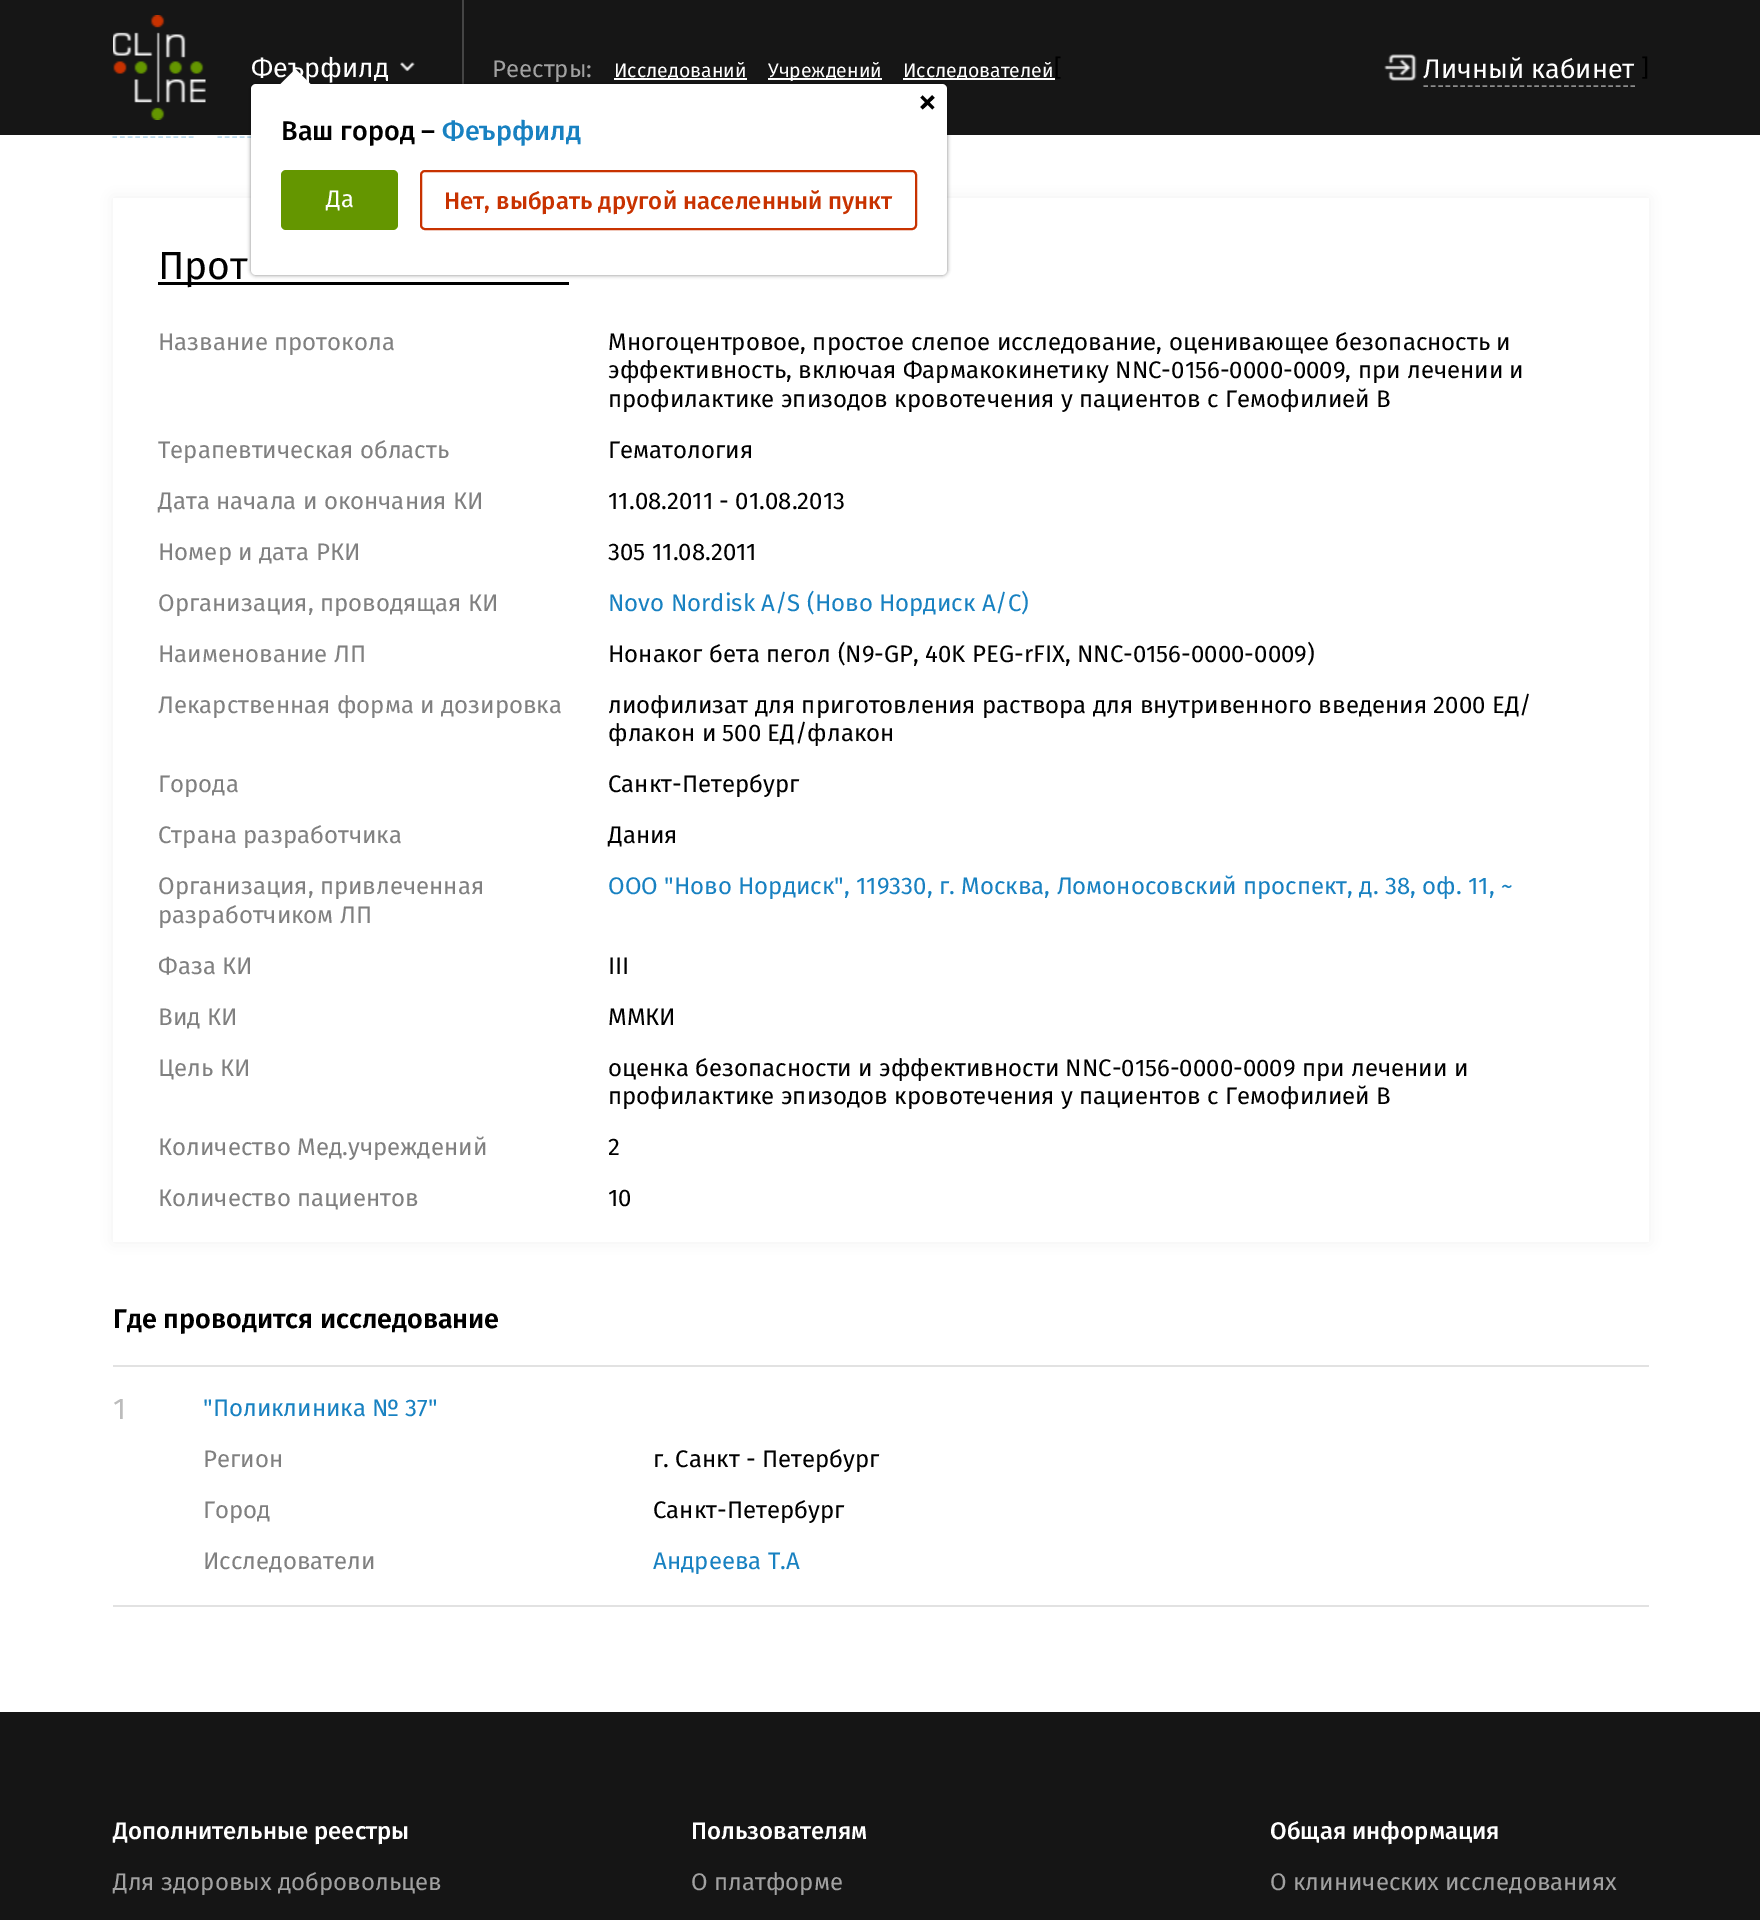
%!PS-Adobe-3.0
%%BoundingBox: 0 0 1760 1920
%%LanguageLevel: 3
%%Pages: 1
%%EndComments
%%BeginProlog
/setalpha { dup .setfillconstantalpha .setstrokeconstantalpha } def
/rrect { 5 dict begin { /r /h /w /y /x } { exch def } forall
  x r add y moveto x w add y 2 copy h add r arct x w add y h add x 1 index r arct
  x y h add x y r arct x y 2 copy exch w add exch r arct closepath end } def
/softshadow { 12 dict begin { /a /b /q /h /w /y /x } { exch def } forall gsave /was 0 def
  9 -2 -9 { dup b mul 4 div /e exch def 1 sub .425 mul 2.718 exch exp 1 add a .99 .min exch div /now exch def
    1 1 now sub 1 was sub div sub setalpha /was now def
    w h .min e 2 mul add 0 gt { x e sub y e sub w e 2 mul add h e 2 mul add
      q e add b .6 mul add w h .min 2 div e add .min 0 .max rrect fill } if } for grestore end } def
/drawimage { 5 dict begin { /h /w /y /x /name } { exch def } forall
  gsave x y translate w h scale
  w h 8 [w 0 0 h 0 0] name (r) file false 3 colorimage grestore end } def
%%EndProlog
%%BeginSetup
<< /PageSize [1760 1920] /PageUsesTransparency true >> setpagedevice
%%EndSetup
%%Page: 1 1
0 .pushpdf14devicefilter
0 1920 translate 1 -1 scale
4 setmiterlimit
1 setgray
0 0 1760 1920 rectfill
0.086 setgray
0 0 1760 135 rectfill
(images/1.raw) 113 15 93 105 drawimage
0.271 setgray
462 0 2 84 rectfill
(images/2.raw) 400 62 15 10 drawimage
1 setgray
614 78 133 2 rectfill
768 78 114 2 rectfill
903 78 152 2 rectfill
0.729 0.851 0.925 setrgbcolor
1.5 setlinewidth
[4.5 2.97] 0 setdash
newpath 217.5 137 moveto 565.5 137 lineto stroke
0 setgray
113 198 1536 1044 0 7.5 0.05 softshadow
1 setgray
113 198 1536 1044 rectfill
0 setgray
251 84 696 191 5 2 0.5 softshadow
1 setgray
251 84 696 191 5 rrect fill
newpath 310.5 84 moveto 280.5 84 lineto 295.5 69 lineto closepath fill
0.392 0.588 0 setrgbcolor
281 170 117 60 5 rrect fill
0.784 0.196 0 setrgbcolor
2 setlinewidth
[] 0 setdash
421 171 495 58 4 rrect stroke
(images/3.raw) 1384 54 33 27 drawimage
0.545 setgray
1.5 setlinewidth
[4.5 2.9] 0 setdash
newpath 1423.5 86 moveto 1635 86 lineto stroke
0.729 0.851 0.925 setrgbcolor
[4.5 3.15] 0 setdash
newpath 112.5 137 moveto 193.5 137 lineto stroke
0 setgray
158 282 411 3 rectfill
0.886 setgray
113 1365 1536 2 rectfill
113 1605 1536 2 rectfill
0.082 setgray
0 1712 1760 208 rectfill
/FiraSans-Regular [27 0 0 -27 0 0] selectfont
1 setgray
251 77 moveto (Феърфилд) show
/FiraSans-Regular [45 0 0 -45 0 0] selectfont
0 setgray
gsave 909 105 translate 45 rotate 0 0 moveto (+) show grestore
/FiraSans-Medium [27 0 0 -27 0 0] selectfont
281 140 moveto (Ваш город –) show
0.094 0.506 0.757 setrgbcolor
442 140 moveto (Феърфилд) show
/FiraSans-Regular [24 0 0 -24 0 0] selectfont
1 setgray
326 207 moveto (Да) show
/FiraSans-Medium [24 0 0 -24 0 0] selectfont
0.784 0.196 0 setrgbcolor
444 209 moveto (Нет, выбрать другой населенный пункт) show
/FiraSans-Regular [24 0 0 -24 0 0] selectfont
0 setgray
1054 76 moveto ([) show
/FiraSans-Regular [27 0 0 -27 0 0] selectfont
1 setgray
1423 78 moveto (Личный кабинет) show
/FiraSans-Regular [24 0 0 -24 0 0] selectfont
0 setgray
1641 76 moveto (]) show
0.631 setgray
492 77 moveto (Реестры:) show
/FiraSans-Regular [19.5 0 0 -19.5 0 0] selectfont
1 setgray
614 77 moveto (Исследований) show
768 77 moveto (Учреждений) show
903 77 moveto (Исследователей) show
/FiraSans-Regular [39 0 0 -39 0 0] selectfont
0 setgray
158 279 moveto (Прот) show
/FiraSans-Regular [24 0 0 -24 0 0] selectfont
0.502 setgray
158 350 moveto (Название протокола) show
0 setgray
608 350 moveto (Многоцентровое, простое слепое исследование, оценивающее безопасность и) show
608 378 moveto (эффективность, включая Фармакокинетику NNC-0156-0000-0009, при лечении и) show
608 407 moveto (профилактике эпизодов кровотечения у пациентов с Гемофилией В) show
0.502 setgray
158 458 moveto (Терапевтическая область) show
0 setgray
608 458 moveto (Гематология) show
0.502 setgray
158 509 moveto (Дата начала и окончания КИ) show
0 setgray
608 509 moveto (11.08.2011 - 01.08.2013) show
0.502 setgray
158 560 moveto (Номер и дата РКИ) show
0 setgray
608 560 moveto (305 11.08.2011) show
0.502 setgray
158 611 moveto (Организация, проводящая КИ) show
0.094 0.506 0.757 setrgbcolor
608 611 moveto (Novo Nordisk A/S \(Ново Нордиск А/С\)) show
0.502 setgray
158 662 moveto (Наименование ЛП) show
0 setgray
608 662 moveto (Нонаког бета пегол \(N9-GP, 40K PEG-rFIX, NNC-0156-0000-0009\)) show
0.502 setgray
158 713 moveto (Лекарственная форма и дозировка) show
0 setgray
608 713 moveto (лиофилизат для приготовления раствора для внутривенного введения 2000 ЕД/) show
608 741 moveto (флакон и 500 ЕД/флакон) show
0.502 setgray
158 792 moveto (Города) show
0 setgray
608 792 moveto (Санкт-Петербург) show
0.502 setgray
158 843 moveto (Страна разработчика) show
0 setgray
608 843 moveto (Дания) show
0.502 setgray
158 894 moveto (Организация, привлеченная) show
158 923 moveto (разработчиком ЛП) show
0.094 0.506 0.757 setrgbcolor
608 894 moveto (ООО "Ново Нордиск", 119330, г. Москва, Ломоносовский проспект, д. 38, оф. 11, ~) show
0.502 setgray
158 974 moveto (Фаза КИ) show
0 setgray
608 974 moveto (III) show
0.502 setgray
158 1025 moveto (Вид КИ) show
0 setgray
608 1025 moveto (ММКИ) show
0.502 setgray
158 1076 moveto (Цель КИ) show
0 setgray
608 1076 moveto (оценка безопасности и эффективности NNC-0156-0000-0009 при лечении и) show
608 1104 moveto (профилактике эпизодов кровотечения у пациентов с Гемофилией В) show
0.502 setgray
158 1155 moveto (Количество Мед.учреждений) show
0 setgray
608 1155 moveto (2) show
0.502 setgray
158 1206 moveto (Количество пациентов) show
0 setgray
608 1206 moveto (10) show
/FiraSans-SemiBold [27 0 0 -27 0 0] selectfont
113 1328 moveto (Где проводится исследование) show
/FiraSans-Regular [30 0 0 -30 0 0] selectfont
0.737 setgray
113 1419 moveto (1) show
/FiraSans-Regular [24 0 0 -24 0 0] selectfont
0.094 0.506 0.757 setrgbcolor
203 1416 moveto ("Поликлиника № 37") show
0.502 setgray
203 1467 moveto (Регион) show
0 setgray
653 1467 moveto (г. Санкт - Петербург) show
0.502 setgray
203 1518 moveto (Город) show
0 setgray
653 1518 moveto (Санкт-Петербург) show
0.502 setgray
203 1569 moveto (Исследователи) show
0.094 0.506 0.757 setrgbcolor
653 1569 moveto (Андреева Т.А) show
/FiraSans-Medium [24 0 0 -24 0 0] selectfont
1 setgray
113 1839 moveto (Дополнительные реестры) show
/FiraSans-Regular [24 0 0 -24 0 0] selectfont
0.631 setgray
113 1890 moveto (Для здоровых добровольцев) show
/FiraSans-Medium [24 0 0 -24 0 0] selectfont
1 setgray
691 1839 moveto (Пользователям) show
/FiraSans-Regular [24 0 0 -24 0 0] selectfont
0.631 setgray
691 1890 moveto (О платформе) show
/FiraSans-Medium [24 0 0 -24 0 0] selectfont
1 setgray
1270 1839 moveto (Общая информация) show
/FiraSans-Regular [24 0 0 -24 0 0] selectfont
0.631 setgray
1270 1890 moveto (О клинических исследованиях) show
.poppdf14devicefilter showpage
%%EOF
